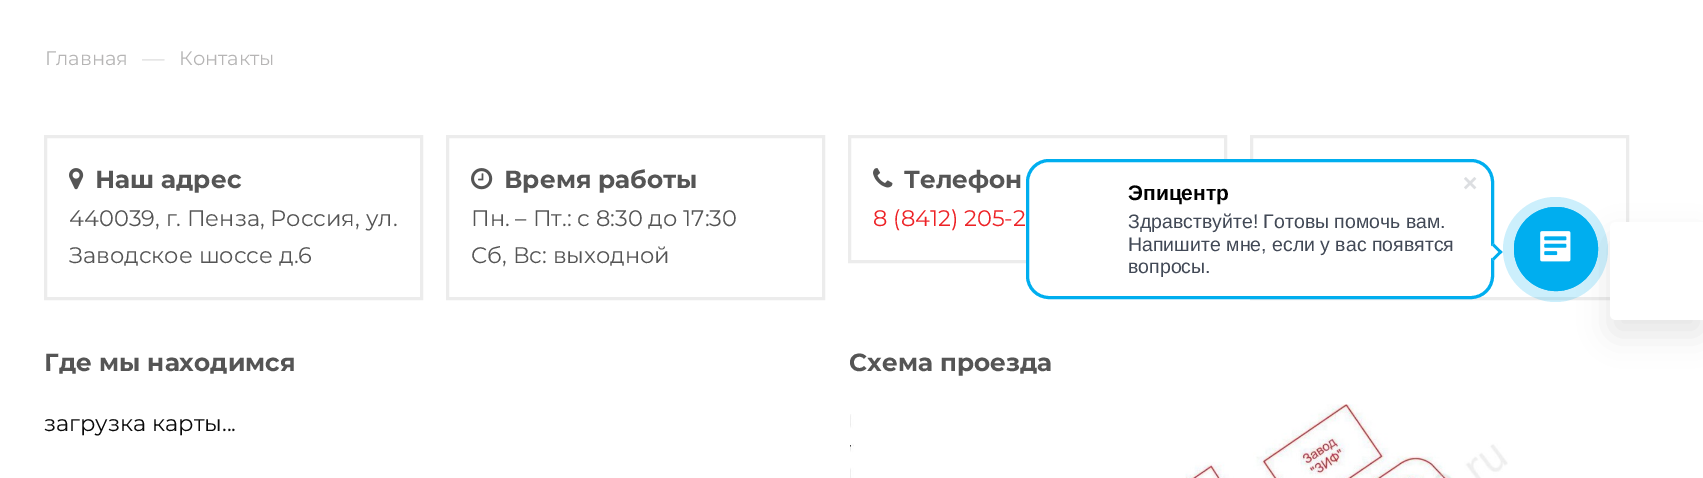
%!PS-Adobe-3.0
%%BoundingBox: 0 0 1703 478
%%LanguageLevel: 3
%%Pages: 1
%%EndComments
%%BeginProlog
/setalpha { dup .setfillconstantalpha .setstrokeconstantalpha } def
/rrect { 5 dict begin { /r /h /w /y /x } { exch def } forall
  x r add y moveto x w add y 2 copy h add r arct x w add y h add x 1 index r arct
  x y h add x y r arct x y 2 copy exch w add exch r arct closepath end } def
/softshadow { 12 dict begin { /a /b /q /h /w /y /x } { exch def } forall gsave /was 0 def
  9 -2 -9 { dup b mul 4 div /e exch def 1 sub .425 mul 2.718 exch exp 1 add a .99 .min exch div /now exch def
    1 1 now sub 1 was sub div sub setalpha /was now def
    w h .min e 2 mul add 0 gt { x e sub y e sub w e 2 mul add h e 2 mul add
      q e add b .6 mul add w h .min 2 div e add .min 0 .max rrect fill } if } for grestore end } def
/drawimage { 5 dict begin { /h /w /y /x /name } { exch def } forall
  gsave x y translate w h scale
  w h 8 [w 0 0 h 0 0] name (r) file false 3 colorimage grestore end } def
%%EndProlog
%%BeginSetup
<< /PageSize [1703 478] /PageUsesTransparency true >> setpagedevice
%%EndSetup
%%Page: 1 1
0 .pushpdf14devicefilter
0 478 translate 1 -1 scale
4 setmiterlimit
1 setgray
0 0 1703 478 rectfill
0.925 setgray
3 setlinewidth
45.5 136.5 376 162 rectstroke
(images/1.raw) 69 168 15 22 drawimage
447.5 136.5 376 162 rectstroke
(images/2.raw) 471 168 22 22 drawimage
849.5 136.5 376 125 rectstroke
(images/3.raw) 873 168 20 20 drawimage
1251.5 136.5 376 162 rectstroke
(images/4.raw) 850 404 658 74 drawimage
1 setgray
1027.5 160.5 465 137 21.5 rrect gsave fill grestore
0 0.682 0.937 setrgbcolor
stroke
(images/5.raw) 1464 177 13 13 drawimage
1 setgray
newpath 1485.5 252 moveto 1494 243.5 lineto 1502.5 252 lineto 1494 260.5 lineto closepath fill
0 0.682 0.937 setrgbcolor
newpath 1492 245.5 moveto 1494 243.5 lineto 1502.5 252 lineto 1500.5 254 lineto closepath fill
newpath 1492 258.5 moveto 1500.5 250 lineto 1502.5 252 lineto 1494 260.5 lineto closepath fill
0 setgray
1610 237 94 98 6 15 0.1 softshadow
0.2 setalpha
0 0.682 0.937 setrgbcolor
newpath 1555.5 249.5 52.5 0 360 arc closepath fill
1 setalpha
1 setlinewidth
newpath 1556 249 41.5 0 360 arc closepath stroke
newpath 1556 249 42 0 360 arc closepath fill
(images/6.raw) 1540 231 31 31 drawimage
1 setgray
newpath 1616 222 moveto 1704 222 lineto 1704 320 lineto 1616 320 lineto 1612.5 320 1610 317.5 1610 314 curveto 1610 228 lineto 1610 224.5 1612.5 222 1616 222 curveto closepath fill
/Montserrat-Regular [19.5 0 0 -19.5 0 0] selectfont
0.714 0.71 0.71 setrgbcolor
45 65 moveto (Главная) show
/Montserrat-Regular [22.5 0 0 -22.5 0 0] selectfont
0.867 setgray
142 66 moveto (—) show
/Montserrat-Regular [19.5 0 0 -19.5 0 0] selectfont
0.714 0.71 0.71 setrgbcolor
179 65 moveto (Контакты) show
/Montserrat-Bold [24.75 0 0 -24.75 0 0] selectfont
0.333 setgray
95 188 moveto (Наш адрес) show
/Montserrat-Regular [22.5 0 0 -22.5 0 0] selectfont
69 226 moveto (440039, г. Пенза, Россия, ул.) show
69 263 moveto (Заводское шоссе д.6) show
/Montserrat-Bold [24.75 0 0 -24.75 0 0] selectfont
504 188 moveto (Время работы) show
/Montserrat-Regular [22.5 0 0 -22.5 0 0] selectfont
471 226 moveto (Пн. – Пт.: с 8:30 до 17:30) show
471 263 moveto (Сб, Вс: выходной) show
/Montserrat-Bold [24.75 0 0 -24.75 0 0] selectfont
904 188 moveto (Телефон) show
/Montserrat-Regular [22.5 0 0 -22.5 0 0] selectfont
0.929 0.133 0.149 setrgbcolor
873 226 moveto (8 \(8412\) 205-2) show
/Montserrat-Bold [24.75 0 0 -24.75 0 0] selectfont
0.333 setgray
44 371 moveto (Где мы находимся) show
/Montserrat-Regular [22.5 0 0 -22.5 0 0] selectfont
0.039 setgray
44 431 moveto (загрузка карты...) show
/Montserrat-Bold [24.75 0 0 -24.75 0 0] selectfont
0.333 setgray
849 371 moveto (Схема проезда) show
/LiberationSans-Bold [21 0 0 -21 0 0] selectfont
0 setgray
1128 200 moveto (Эпицентр) show
/LiberationSans-Regular [19.5 0 0 -19.5 0 0] selectfont
0.259 0.286 0.337 setrgbcolor
1128 228 moveto (Здравствуйте! Готовы помочь вам.) show
1128 251 moveto (Напишите мне, если у вас появятся) show
1128 273 moveto (вопросы.) show
.poppdf14devicefilter showpage
%%EOF
